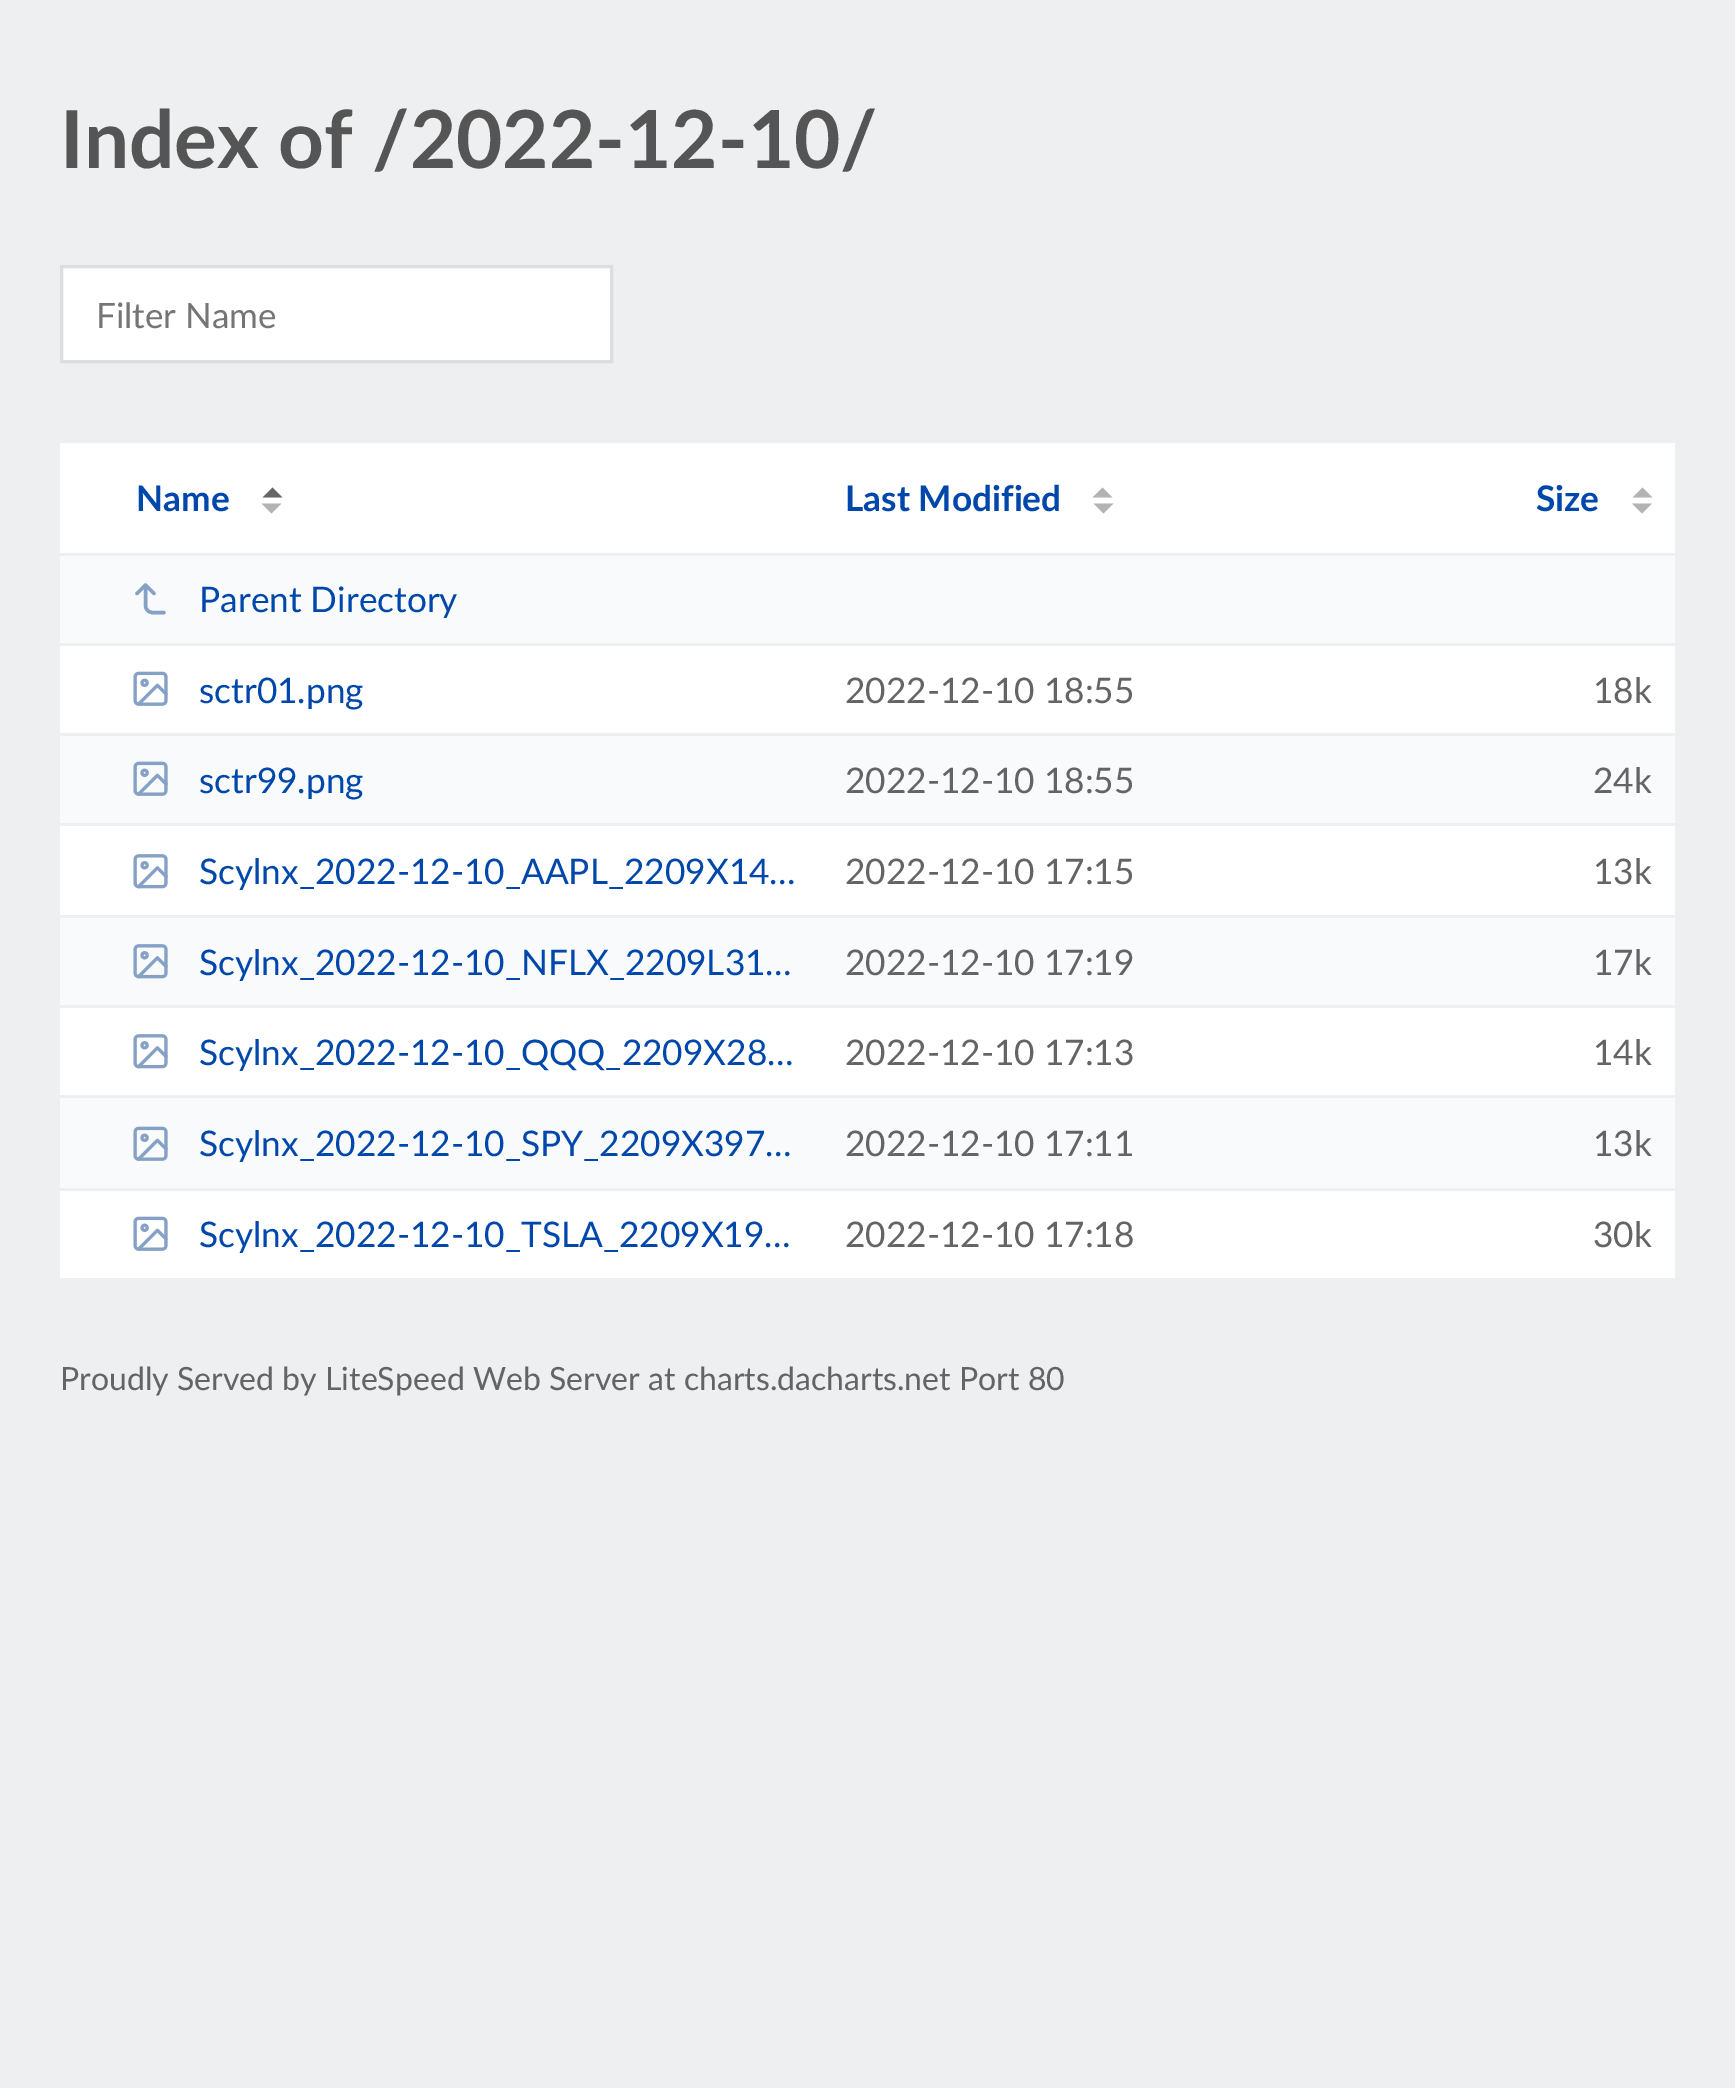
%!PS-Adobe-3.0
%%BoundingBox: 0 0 1735 2088
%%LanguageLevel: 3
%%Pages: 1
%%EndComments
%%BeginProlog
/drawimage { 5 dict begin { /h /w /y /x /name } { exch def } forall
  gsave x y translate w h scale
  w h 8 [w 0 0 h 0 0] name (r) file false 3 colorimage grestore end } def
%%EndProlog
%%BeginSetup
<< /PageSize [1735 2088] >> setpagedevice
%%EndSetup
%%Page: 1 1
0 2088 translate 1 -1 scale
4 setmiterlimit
0.929 0.937 0.941 setrgbcolor
0 0 1735 2088 rectfill
1 setgray
newpath 61.5 266.5 moveto 611.5 266.5 lineto 611.5 361.5 lineto 61.5 361.5 lineto closepath gsave fill grestore
0.867 setgray
3 setlinewidth
stroke
1 setgray
60 443 1615 835 rectfill
0.4 setgray
newpath 282.5 497.5 moveto 262.5 497.5 lineto 272.5 487.5 lineto closepath fill
0.702 setgray
newpath 261.5 503.5 moveto 281.5 503.5 lineto 271.5 513.5 lineto closepath fill
newpath 1112.5 497.5 moveto 1092.5 497.5 lineto 1102.5 487.5 lineto closepath 1093.5 503.5 moveto 1113.5 503.5 lineto 1103.5 513.5 lineto closepath fill
newpath 1652.5 497.5 moveto 1632.5 497.5 lineto 1642.5 487.5 lineto closepath 1632 503.5 moveto 1652 503.5 lineto 1642 513.5 lineto closepath fill
0.973 0.98 0.984 setrgbcolor
60 556 1615 87 rectfill
0.929 0.937 0.941 setrgbcolor
60 553 1615 3 rectfill
60 643 1615 3 rectfill
0.525 0.631 0.776 setrgbcolor
3.4 setlinewidth
1 setlinecap
1 setlinejoin
newpath 154 593.5 moveto 145.5 585 lineto 137 593.5 lineto 164 612.5 moveto 152.5 612.5 lineto 148.5 612.5 145.5 609.5 145.5 605.5 curveto 145.5 585 lineto stroke
(images/1.raw) 133 671 35 35 drawimage
0.973 0.98 0.984 setrgbcolor
60 736 1615 87 rectfill
0.929 0.937 0.941 setrgbcolor
60 733 1615 3 rectfill
60 823 1615 3 rectfill
(images/2.raw) 133 761 35 35 drawimage
(images/3.raw) 133 854 35 35 drawimage
0.973 0.98 0.984 setrgbcolor
60 918 1615 87 rectfill
0.929 0.937 0.941 setrgbcolor
60 915 1615 3 rectfill
60 1005 1615 3 rectfill
(images/4.raw) 133 944 35 35 drawimage
(images/3.raw) 133 1034 35 35 drawimage
0.973 0.98 0.984 setrgbcolor
60 1098 1615 90 rectfill
0.929 0.937 0.941 setrgbcolor
60 1095 1615 3 rectfill
60 1188 1615 3 rectfill
(images/2.raw) 133 1126 35 35 drawimage
(images/1.raw) 133 1216 35 35 drawimage
/Lato-Bold [80 0 0 -80 0 0] selectfont
0.333 setgray
60 168 moveto (Index of /2022-12-10/) show
/Lato-Regular [35 0 0 -35 0 0] selectfont
0.459 setgray
96 328 moveto (Filter Name) show
/Lato-Bold [35.25 0 0 -35.25 0 0] selectfont
0 0.278 0.671 setrgbcolor
136 511 moveto (Name) show
845 511 moveto (Last Modified) show
1536 511 moveto (Size) show
/Lato-Regular [35.25 0 0 -35.25 0 0] selectfont
199 612 moveto (Parent Directory) show
199 703 moveto (sctr01.png) show
0.392 setgray
845 703 moveto (2022-12-10 18:55) show
1593 703 moveto (18k) show
0 0.278 0.671 setrgbcolor
199 793 moveto (sctr99.png) show
0.392 setgray
845 793 moveto (2022-12-10 18:55) show
1593 793 moveto (24k) show
0 0.278 0.671 setrgbcolor
199 884 moveto (Scylnx_2022-12-10_AAPL_2209X14…) show
0.392 setgray
845 884 moveto (2022-12-10 17:15) show
1593 884 moveto (13k) show
0 0.278 0.671 setrgbcolor
199 975 moveto (Scylnx_2022-12-10_NFLX_2209L31…) show
0.392 setgray
845 975 moveto (2022-12-10 17:19) show
1593 975 moveto (17k) show
0 0.278 0.671 setrgbcolor
199 1065 moveto (Scylnx_2022-12-10_QQQ_2209X28…) show
0.392 setgray
845 1065 moveto (2022-12-10 17:13) show
1593 1065 moveto (14k) show
0 0.278 0.671 setrgbcolor
199 1156 moveto (Scylnx_2022-12-10_SPY_2209X397…) show
0.392 setgray
845 1156 moveto (2022-12-10 17:11) show
1593 1156 moveto (13k) show
0 0.278 0.671 setrgbcolor
199 1247 moveto (Scylnx_2022-12-10_TSLA_2209X19…) show
0.392 setgray
845 1247 moveto (2022-12-10 17:18) show
1593 1247 moveto (30k) show
/Lato-Regular [32 0 0 -32 0 0] selectfont
60 1390 moveto (Proudly Served by LiteSpeed Web Server at charts.dacharts.net Port 80) show
showpage
%%EOF
